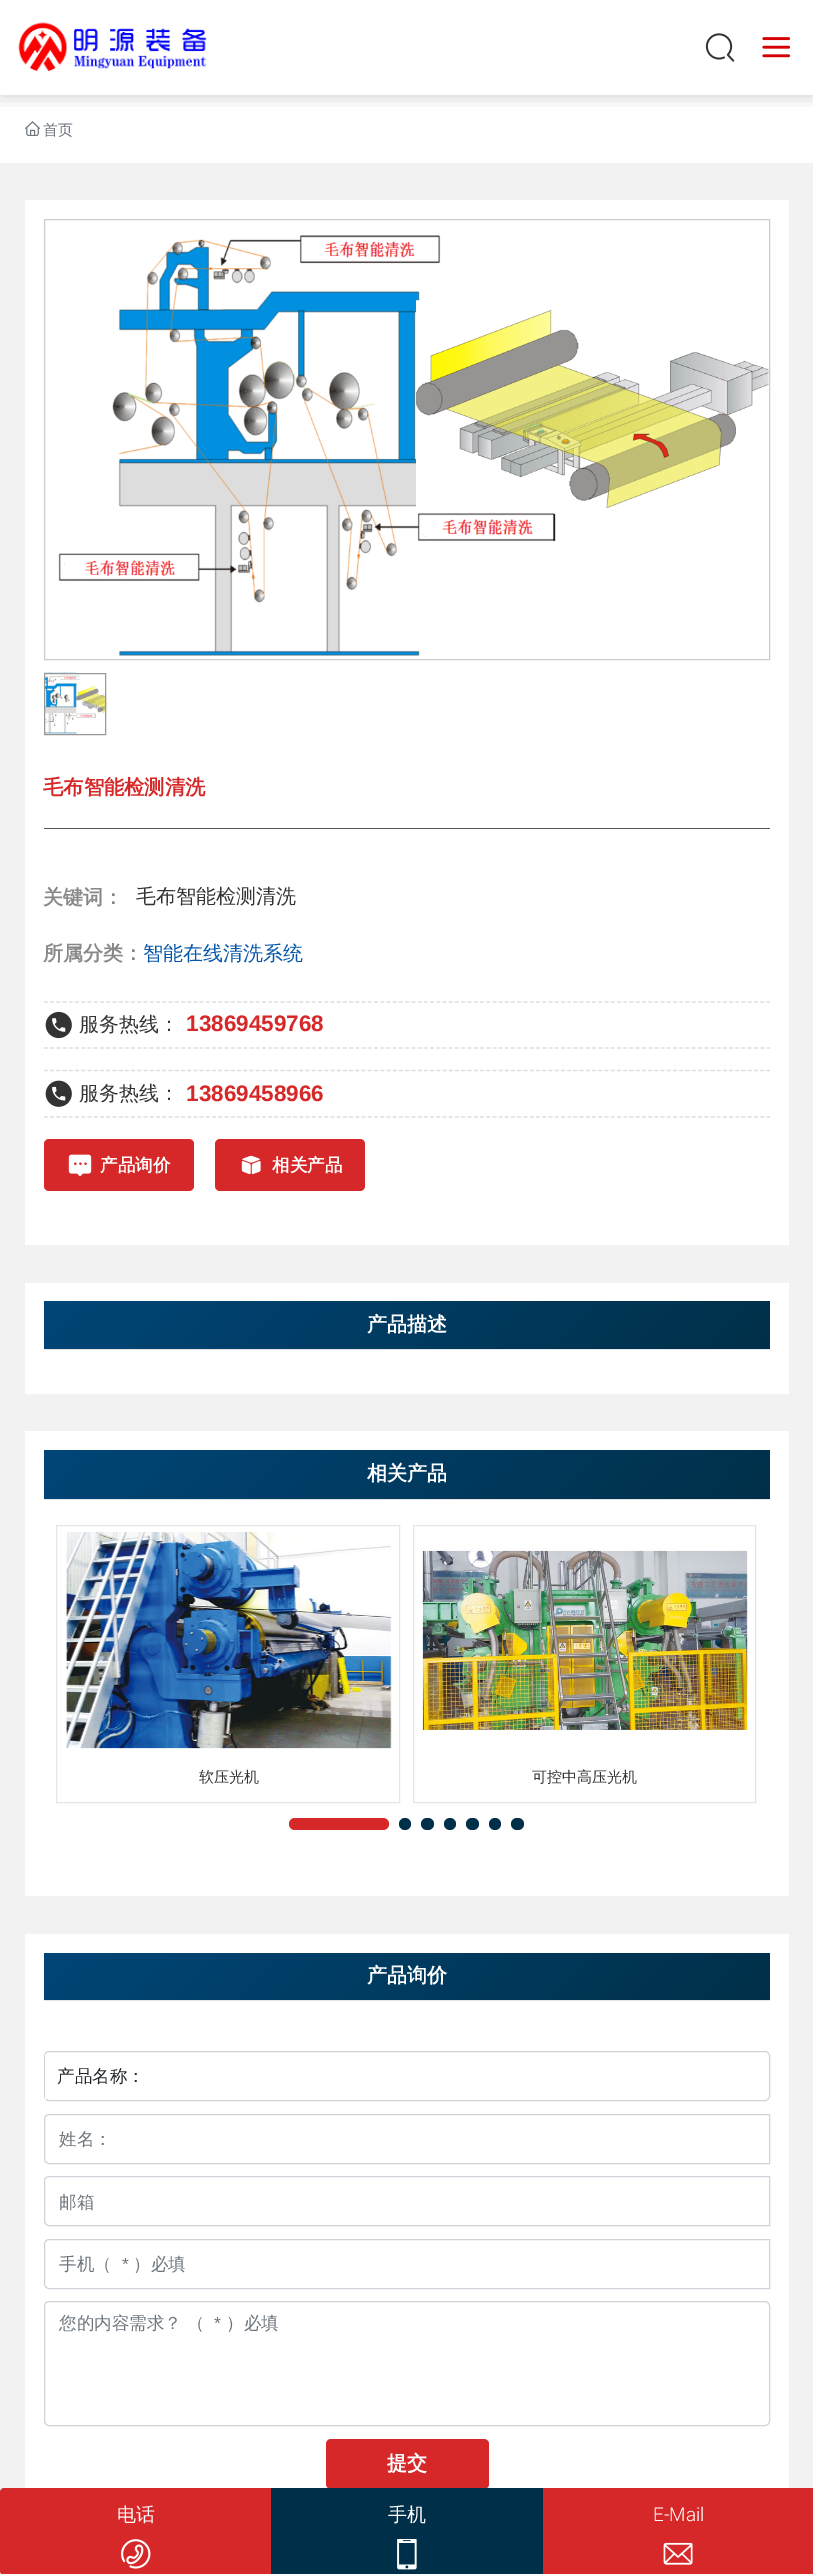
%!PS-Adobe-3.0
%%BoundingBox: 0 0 813 2574
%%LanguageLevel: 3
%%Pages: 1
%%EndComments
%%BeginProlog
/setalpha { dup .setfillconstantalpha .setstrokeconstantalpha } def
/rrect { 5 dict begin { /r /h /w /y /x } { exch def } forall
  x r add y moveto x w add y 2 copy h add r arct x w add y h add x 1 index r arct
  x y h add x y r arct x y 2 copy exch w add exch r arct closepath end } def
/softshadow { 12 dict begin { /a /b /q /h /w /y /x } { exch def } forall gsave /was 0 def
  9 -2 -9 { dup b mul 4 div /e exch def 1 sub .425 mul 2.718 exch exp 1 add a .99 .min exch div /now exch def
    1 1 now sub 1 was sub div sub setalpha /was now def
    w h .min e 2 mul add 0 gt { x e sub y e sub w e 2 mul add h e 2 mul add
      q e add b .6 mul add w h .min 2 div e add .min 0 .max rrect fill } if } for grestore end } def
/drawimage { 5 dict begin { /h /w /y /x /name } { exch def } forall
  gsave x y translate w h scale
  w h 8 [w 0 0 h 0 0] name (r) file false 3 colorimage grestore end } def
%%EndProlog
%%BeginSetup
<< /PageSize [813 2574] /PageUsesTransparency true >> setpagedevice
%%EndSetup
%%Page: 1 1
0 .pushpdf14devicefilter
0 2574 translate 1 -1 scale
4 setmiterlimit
1 setgray
0 0 813 2574 rectfill
(images/4.raw) 25 121 15 15 drawimage
gsave
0 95 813 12 rectclip
0 setgray
0 0 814 95 0 9.5 0.2 softshadow
grestore
(images/1.raw) 18 22 189 50 drawimage
(images/2.raw) 705 33 30 29 drawimage
(images/3.raw) 762 37 29 21 drawimage
0.949 setgray
0 163 813 2411 rectfill
1 setgray
25 200 764 1045 rectfill
0.8 setgray
44.5 219.5 725 440 rectstroke
(images/5.raw) 58 235 711 421 drawimage
(images/6.raw) 43 672 64 62 drawimage
0.6 setgray
44.5 673.5 61 61 rectstroke
0.333 setgray
44 828 726 1 rectfill
0.867 setgray
1.2 setlinewidth
[3.75 2.48] 0 setdash
newpath 44 1002 moveto 770 1002 lineto stroke
newpath 44 1048 moveto 770 1048 lineto stroke
(images/7.raw) 45 1011 27 28 drawimage
newpath 44 1070.5 moveto 770 1070.5 lineto stroke
newpath 44 1117 moveto 770 1117 lineto stroke
(images/8.raw) 45 1080 27 27 drawimage
0.839 0.157 0.157 setrgbcolor
44 1139 150 52 5 rrect fill
(images/9.raw) 68 1154 24 23 drawimage
215 1139 150 52 5 rrect fill
(images/10.raw) 241 1155 20 20 drawimage
1 setgray
25 1283 764 111 rectfill
0.898 setgray
44 1349 726 1 rectfill
gsave newpath 44 1301 moveto 770 1301 lineto 770 1349 lineto 44 1349 lineto closepath clip newpath
<< /ShadingType 2 /ColorSpace /DeviceRGB /Coords [213 1132 600 1518] /Extend [true true] /Function << /FunctionType 2 /Domain [0 1] /C0 [0 0.275 0.471] /C1 [0 0.188 0.286] /N 1 >> >> shfill grestore
1 setgray
25 1431 764 465 rectfill
0.898 setgray
44 1499 726 1 rectfill
gsave newpath 44 1450 moveto 770 1450 lineto 770 1499 lineto 44 1499 lineto closepath clip newpath
<< /ShadingType 2 /ColorSpace /DeviceRGB /Coords [213 1281 601 1668] /Extend [true true] /Function << /FunctionType 2 /Domain [0 1] /C0 [0 0.275 0.471] /C1 [0 0.188 0.286] /N 1 >> >> shfill grestore
0.902 setgray
1 setlinewidth
[] 0 setdash
56.5 1525.5 343 277 rectstroke
(images/11.raw) 66 1532 326 217 drawimage
413.5 1525.5 342 277 rectstroke
(images/12.raw) 422 1548 326 182 drawimage
0.839 0.157 0.157 setrgbcolor
289 1818 100 12 6 rrect fill
0 0.188 0.286 setrgbcolor
newpath 405 1824 6 0 360 arc closepath fill
421 1818 13 12 6 rrect fill
newpath 450 1824 6 0 360 arc closepath fill
466 1818 13 12 6 rrect fill
newpath 495 1824 6 0 360 arc closepath fill
511 1818 13 12 6 rrect fill
1 setgray
25 1934 764 554 rectfill
0.898 setgray
44 2000 726 1 rectfill
gsave newpath 44 1953 moveto 770 1953 lineto 770 2000 lineto 44 2000 lineto closepath clip newpath
<< /ShadingType 2 /ColorSpace /DeviceRGB /Coords [213 1783 600 2170] /Extend [true true] /Function << /FunctionType 2 /Domain [0 1] /C0 [0 0.275 0.471] /C1 [0 0.188 0.286] /N 1 >> >> shfill grestore
0.808 0.831 0.855 setrgbcolor
44.5 2051.5 725 49 4.5 rrect stroke
gsave
45 2053 724 47 4 rrect clip newpath
1 setgray
45 2054 113 45 rectfill
grestore
newpath 49 2114.5 moveto 769.5 2114.5 lineto 769.5 2163.5 lineto 49 2163.5 lineto 46.5 2163.5 44.5 2161.5 44.5 2159 curveto 44.5 2119 lineto 44.5 2116.5 46.5 2114.5 49 2114.5 curveto closepath stroke
newpath 49 2176.5 moveto 769.5 2176.5 lineto 769.5 2225.5 lineto 49 2225.5 lineto 46.5 2225.5 44.5 2223.5 44.5 2221 curveto 44.5 2181 lineto 44.5 2178.5 46.5 2176.5 49 2176.5 curveto closepath stroke
newpath 49 2239.5 moveto 769.5 2239.5 lineto 769.5 2288.5 lineto 49 2288.5 lineto 46.5 2288.5 44.5 2286.5 44.5 2284 curveto 44.5 2244 lineto 44.5 2241.5 46.5 2239.5 49 2239.5 curveto closepath stroke
44.5 2301.5 725 124 4.5 rrect stroke
0.839 0.157 0.157 setrgbcolor
326 2439 163 50 5 rrect fill
newpath 4 2488 moveto 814 2488 lineto 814 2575 lineto 4 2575 lineto 2 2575 0 2573 0 2571 curveto 0 2492 lineto 0 2490 2 2488 4 2488 curveto closepath fill
(images/13.raw) 121 2539 30 30 drawimage
0 0.188 0.286 setrgbcolor
271 2488 272 86 rectfill
(images/14.raw) 397 2539 20 31 drawimage
(images/15.raw) 663 2542 30 23 drawimage
/WenQuanYiZenHei-Medium [15 0 0 -15 0 0] selectfont
0.424 0.459 0.49 setrgbcolor
43 135 moveto (首页) show
/WenQuanYiZenHei-Bold [20.25 0 0 -20.25 0 0] selectfont
0.839 0.157 0.157 setrgbcolor
43 794 moveto (毛布智能检测清洗) show
/WenQuanYiZenHei-Bold [20 0 0 -20 0 0] selectfont
0.533 setgray
43 904 moveto (关键词：) show
/WenQuanYiZenHei-Medium [20 0 0 -20 0 0] selectfont
0.2 setgray
136 903 moveto (毛布智能检测清洗) show
/WenQuanYiZenHei-Bold [20 0 0 -20 0 0] selectfont
0.533 setgray
43 960 moveto (所属分类：) show
/WenQuanYiZenHei-Medium [20 0 0 -20 0 0] selectfont
0.024 0.337 0.663 setrgbcolor
143 960 moveto (智能在线清洗系统) show
0.2 setgray
79 1031 moveto (服务热线：) show
/LiberationSans-Bold [22.5 0 0 -22.5 0 0] selectfont
0.839 0.157 0.157 setrgbcolor
186 1031 moveto (13869459768) show
/WenQuanYiZenHei-Medium [20 0 0 -20 0 0] selectfont
0.2 setgray
79 1100 moveto (服务热线：) show
/LiberationSans-Bold [22.5 0 0 -22.5 0 0] selectfont
0.839 0.157 0.157 setrgbcolor
186 1101 moveto (13869458966) show
/WenQuanYiZenHei-Bold [17.5 0 0 -17.5 0 0] selectfont
1 setgray
100 1171 moveto (产品询价) show
272 1171 moveto (相关产品) show
/WenQuanYiZenHei-Bold [20 0 0 -20 0 0] selectfont
367 1331 moveto (产品描述) show
367 1480 moveto (相关产品) show
/WenQuanYiZenHei-Medium [15 0 0 -15 0 0] selectfont
0.2 setgray
199 1782 moveto (软压光机) show
532 1782 moveto (可控中高压光机) show
/WenQuanYiZenHei-Bold [20 0 0 -20 0 0] selectfont
1 setgray
367 1982 moveto (产品询价) show
/WenQuanYiZenHei-Medium [17.5 0 0 -17.5 0 0] selectfont
0.129 0.145 0.161 setrgbcolor
57 2082 moveto (产品名称：) show
0.424 0.459 0.49 setrgbcolor
59 2145 moveto (姓名：) show
59 2208 moveto (邮箱) show
59 2270 moveto (手机（) show
/LiberationSans-Regular [17.5 0 0 -17.5 0 0] selectfont
122 2270 moveto (*) show
/WenQuanYiZenHei-Medium [17.5 0 0 -17.5 0 0] selectfont
133 2270 moveto (）必填) show
59 2329 moveto (您的内容需求？ （) show
/LiberationSans-Regular [17.5 0 0 -17.5 0 0] selectfont
214 2329 moveto (*) show
/WenQuanYiZenHei-Medium [17.5 0 0 -17.5 0 0] selectfont
226 2329 moveto (）必填) show
/WenQuanYiZenHei-Bold [20 0 0 -20 0 0] selectfont
1 setgray
387 2470 moveto (提交) show
/WenQuanYiZenHei-Medium [19 0 0 -19 0 0] selectfont
117 2521 moveto (电话) show
388 2521 moveto (手机) show
/Roboto-Light [19 0 0 -19 0 0] selectfont
653 2521 moveto (E-Mail) show
.poppdf14devicefilter showpage
%%EOF
